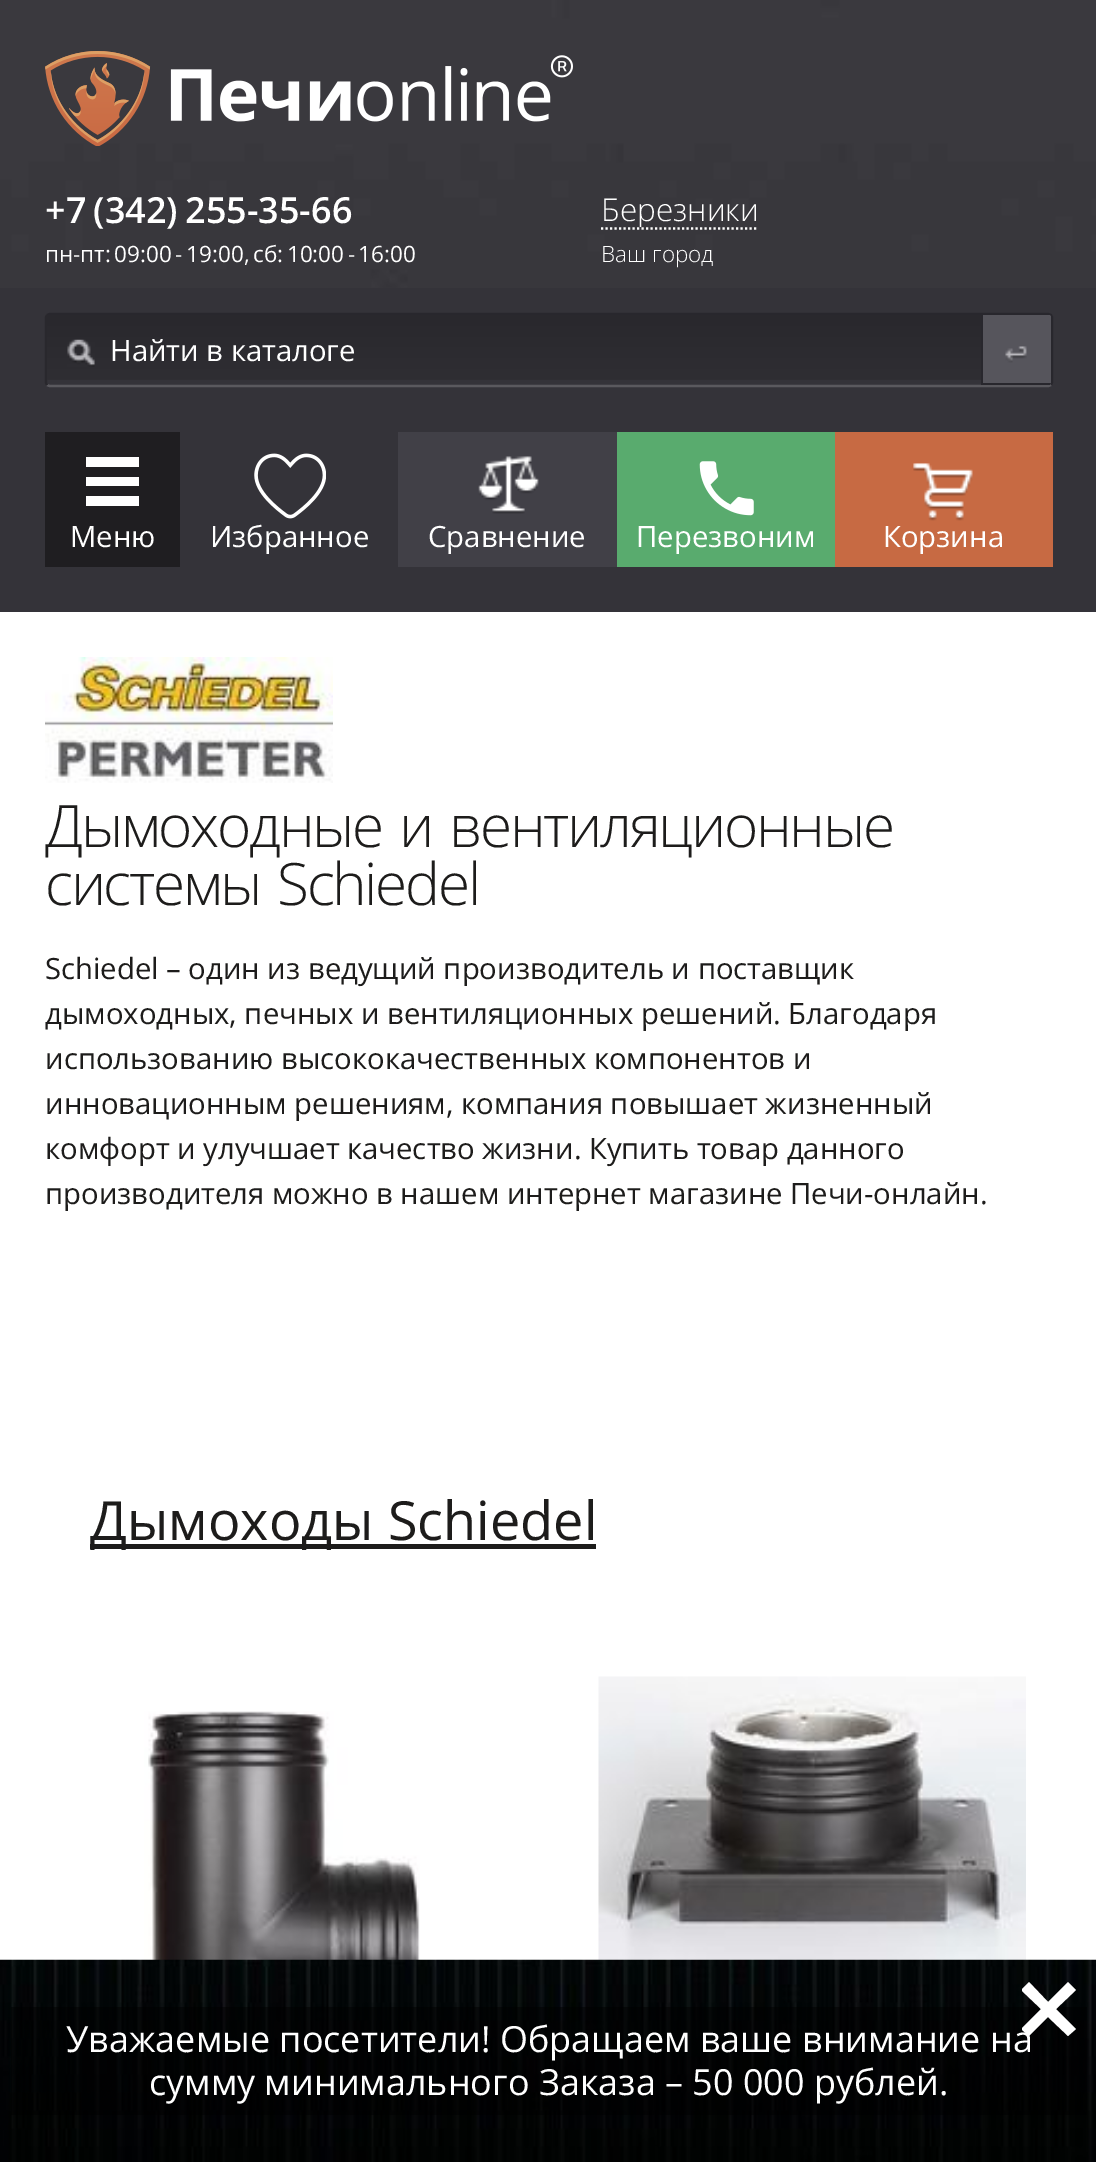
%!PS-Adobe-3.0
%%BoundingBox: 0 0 1096 2162
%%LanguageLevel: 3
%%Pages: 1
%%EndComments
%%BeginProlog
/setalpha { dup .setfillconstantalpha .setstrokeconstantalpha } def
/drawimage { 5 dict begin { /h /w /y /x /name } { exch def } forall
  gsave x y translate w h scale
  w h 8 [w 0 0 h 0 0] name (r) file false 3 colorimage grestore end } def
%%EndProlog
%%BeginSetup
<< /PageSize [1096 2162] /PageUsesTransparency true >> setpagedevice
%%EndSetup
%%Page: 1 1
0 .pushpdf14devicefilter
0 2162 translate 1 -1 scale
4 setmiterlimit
0.204 0.2 0.224 setrgbcolor
0 0 1096 2162 rectfill
(images/1.raw) 0 0 1096 288 drawimage
(images/2.raw) 45 51 528 95 drawimage
1 setgray
2.2 setlinewidth
[2.25 2.25] 0 setdash
newpath 601 228.5 moveto 758 228.5 lineto stroke
0.157 0.153 0.176 setrgbcolor
[] 0 setdash
newpath 47 315 moveto 49.5 314 lineto 1048.5 314 lineto 1051 315 lineto 1052 317 lineto 1052 382.5 lineto 1051 385 lineto stroke
0.353 0.349 0.369 setrgbcolor
newpath 1051 385 moveto 1048.5 386 lineto 49.5 386 lineto 47 385 lineto stroke
0.161 0.157 0.176 setrgbcolor
newpath 47 385 moveto 46 383 lineto 46 317 lineto 47 315 lineto stroke
gsave newpath 49 315 moveto 1049 315 lineto 1050 315 1051 316 1051 317 curveto 1051 380 lineto 47 380 lineto 47 317 lineto 47 316 48 315 49 315 curveto closepath clip newpath
<< /ShadingType 2 /ColorSpace /DeviceRGB /Coords [549 315 549 380] /Extend [true true] /Function << /FunctionType 2 /Domain [0 1] /C0 [0.161 0.157 0.176] /C1 [0.184 0.18 0.2] /N 1 >> >> shfill grestore
(images/3.raw) 67 339 28 28 drawimage
0.337 0.333 0.361 setrgbcolor
newpath 981 315 moveto 1049 315 lineto 1050 315 1051 316 1051 317 curveto 1051 383 lineto 1051 384 1050 385 1049 385 curveto 981 385 lineto closepath fill
(images/4.raw) 1005 346 22 17 drawimage
0.157 0.153 0.176 setrgbcolor
newpath 983 315 moveto 981 315 lineto 981 385 lineto 1050 385 lineto 1051 383 lineto 983 383 lineto closepath fill
0.122 0.118 0.129 setrgbcolor
45 432 135 135 rectfill
1 setgray
newpath 86 506 moveto 86 496 lineto 139 496 lineto 139 506 lineto closepath 86 477 moveto 139 477 lineto 139 486 lineto 86 486 lineto closepath 86 457 moveto 139 457 lineto 139 467 lineto 86 467 lineto closepath fill
(images/5.raw) 254 453 72 66 drawimage
0.255 0.251 0.278 setrgbcolor
398 432 219 135 rectfill
(images/6.raw) 478 456 61 58 drawimage
0.349 0.671 0.431 setrgbcolor
617 432 218 135 rectfill
(images/7.raw) 699 461 55 55 drawimage
0.78 0.416 0.263 setrgbcolor
835 432 218 135 rectfill
(images/8.raw) 913 463 60 58 drawimage
1 setgray
0 612 1096 1348 rectfill
(images/9.raw) 45 657 288 126 drawimage
0.114 0.11 0.106 setrgbcolor
90 1544 506 5 rectfill
(images/10.raw) 144 1711 276 249 drawimage
(images/11.raw) 598 1676 428 284 drawimage
(images/12.raw) 0 1959 1096 203 drawimage
0.5 setalpha
0 setgray
11 2007 1076 108 rectfill
gsave
1022 1982 54 54 rectclip
1 setalpha
1 setgray
newpath 1076 2029 moveto 1068 2036 lineto 1048 2017 lineto 1029 2036 lineto 1021 2029 lineto 1041 2009 lineto 1021 1990 lineto 1029 1982 lineto 1048 2002 lineto 1068 1982 lineto 1076 1990 lineto 1056 2009 lineto closepath fill
grestore
/OpenSans-SemiBold [36 0 0 -36 0 0] selectfont
1 setalpha
1 setgray
45 223 moveto -2.25 0 32 (+7 \(342\) 255-35-66) widthshow
/OpenSans-Regular [22.5 0 0 -22.5 0 0] selectfont
45 262 moveto -2.25 0 32 (пн-пт: 09:00 - 19:00, сб: 10:00 - 16:00) widthshow
gsave
601 191 157 36 rectclip
/OpenSans-Light [31.5 0 0 -31.5 0 0] selectfont
601 221 moveto (Березники) show
grestore
/OpenSans-Light [22.5 0 0 -22.5 0 0] selectfont
601 262 moveto (Ваш город) show
/OpenSans-Regular [29.25 0 0 -29.25 0 0] selectfont
110 361 moveto (Найти в каталоге) show
70 547 moveto (Меню) show
210 547 moveto (Избранное) show
428 547 moveto (Сравнение) show
636 547 moveto (Перезвоним) show
883 547 moveto (Корзина) show
/OpenSans-Light [58.5 0 0 -58.5 0 0] selectfont
0.114 0.11 0.106 setrgbcolor
45 847 moveto 4 0 32 -2.25 0 (Дымоходные и вентиляционные) awidthshow
45 905 moveto 4 0 32 -2.25 0 (системы Schiedel) awidthshow
/OpenSans-Regular [29.25 0 0 -29.25 0 0] selectfont
45 979 moveto (Schiedel – один из ведущий производитель и поставщик) show
45 1024 moveto (дымоходных, печных и вентиляционных решений. Благодаря) show
45 1069 moveto (использованию высококачественных компонентов и) show
45 1114 moveto (инновационным решениям, компания повышает жизненный) show
45 1159 moveto (комфорт и улучшает качество жизни. Купить товар данного) show
45 1204 moveto (производителя можно в нашем интернет магазине Печи-онлайн.) show
/OpenSans-Regular [54 0 0 -54 0 0] selectfont
90 1540 moveto (Дымоходы Schiedel) show
/OpenSans-Regular [36 0 0 -36 0 0] selectfont
1 setgray
66 2052 moveto (Уважаемые посетители! Обращаем ваше внимание на) show
149 2095 moveto (сумму минимального Заказа – 50 000 рублей.) show
.poppdf14devicefilter showpage
%%EOF
